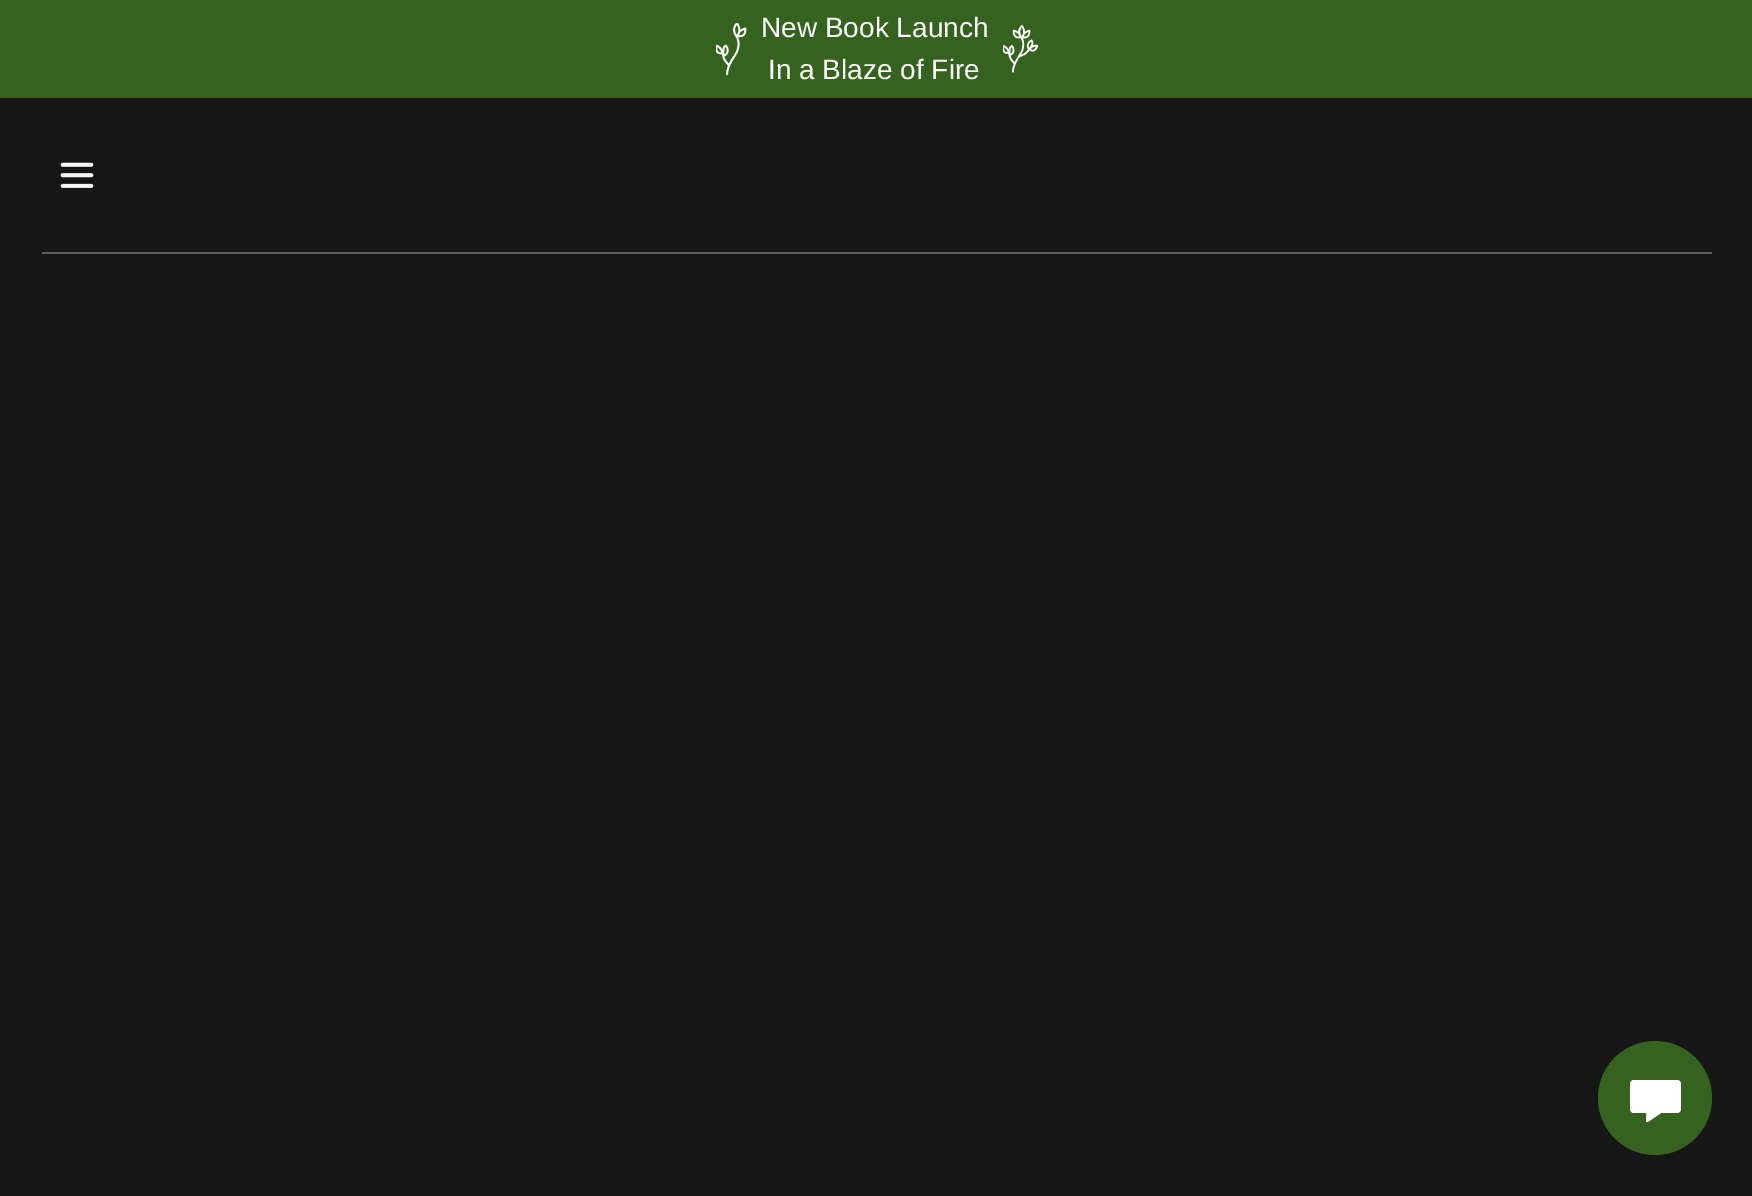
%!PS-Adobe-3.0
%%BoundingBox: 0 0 1752 1196
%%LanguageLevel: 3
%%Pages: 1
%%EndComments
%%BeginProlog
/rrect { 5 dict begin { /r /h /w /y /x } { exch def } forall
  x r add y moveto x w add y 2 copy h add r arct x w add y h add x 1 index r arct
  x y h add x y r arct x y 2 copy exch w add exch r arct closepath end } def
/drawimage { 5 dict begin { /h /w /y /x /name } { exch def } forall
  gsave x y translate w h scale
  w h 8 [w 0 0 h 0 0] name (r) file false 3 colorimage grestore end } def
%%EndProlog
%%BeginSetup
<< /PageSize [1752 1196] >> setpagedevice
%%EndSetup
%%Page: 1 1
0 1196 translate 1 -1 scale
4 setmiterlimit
0.086 setgray
0 0 1752 1196 rectfill
0.208 0.384 0.118 setrgbcolor
0 0 1752 98 rectfill
(images/1.raw) 716 23 31 52 drawimage
(images/2.raw) 1003 25 35 48 drawimage
(images/3.raw) 60 162 34 26 drawimage
0.361 setgray
42 252 1670 2 rectfill
0.208 0.384 0.118 setrgbcolor
newpath 1655 1098 57 0 360 arc closepath fill
1 setgray
1630 1080 51 33 4 rrect fill
newpath 1646 1120 moveto 1646.5 1111.5 lineto 1646.5 1110.5 1647.5 1109.5 1648.5 1109.5 curveto 1660 1109.5 lineto 1661.5 1109.5 1662.5 1112 1661 1113 curveto 1648.5 1121.5 lineto 1648 1122 1647.5 1122 1646.5 1122 curveto 1646 1121.5 1646 1121 1646 1120 curveto closepath fill
/LiberationSans-Regular [28 0 0 -28 0 0] selectfont
761 37 moveto (New Book Launch) show
768 79 moveto (In a Blaze of Fire) show
showpage
%%EOF
